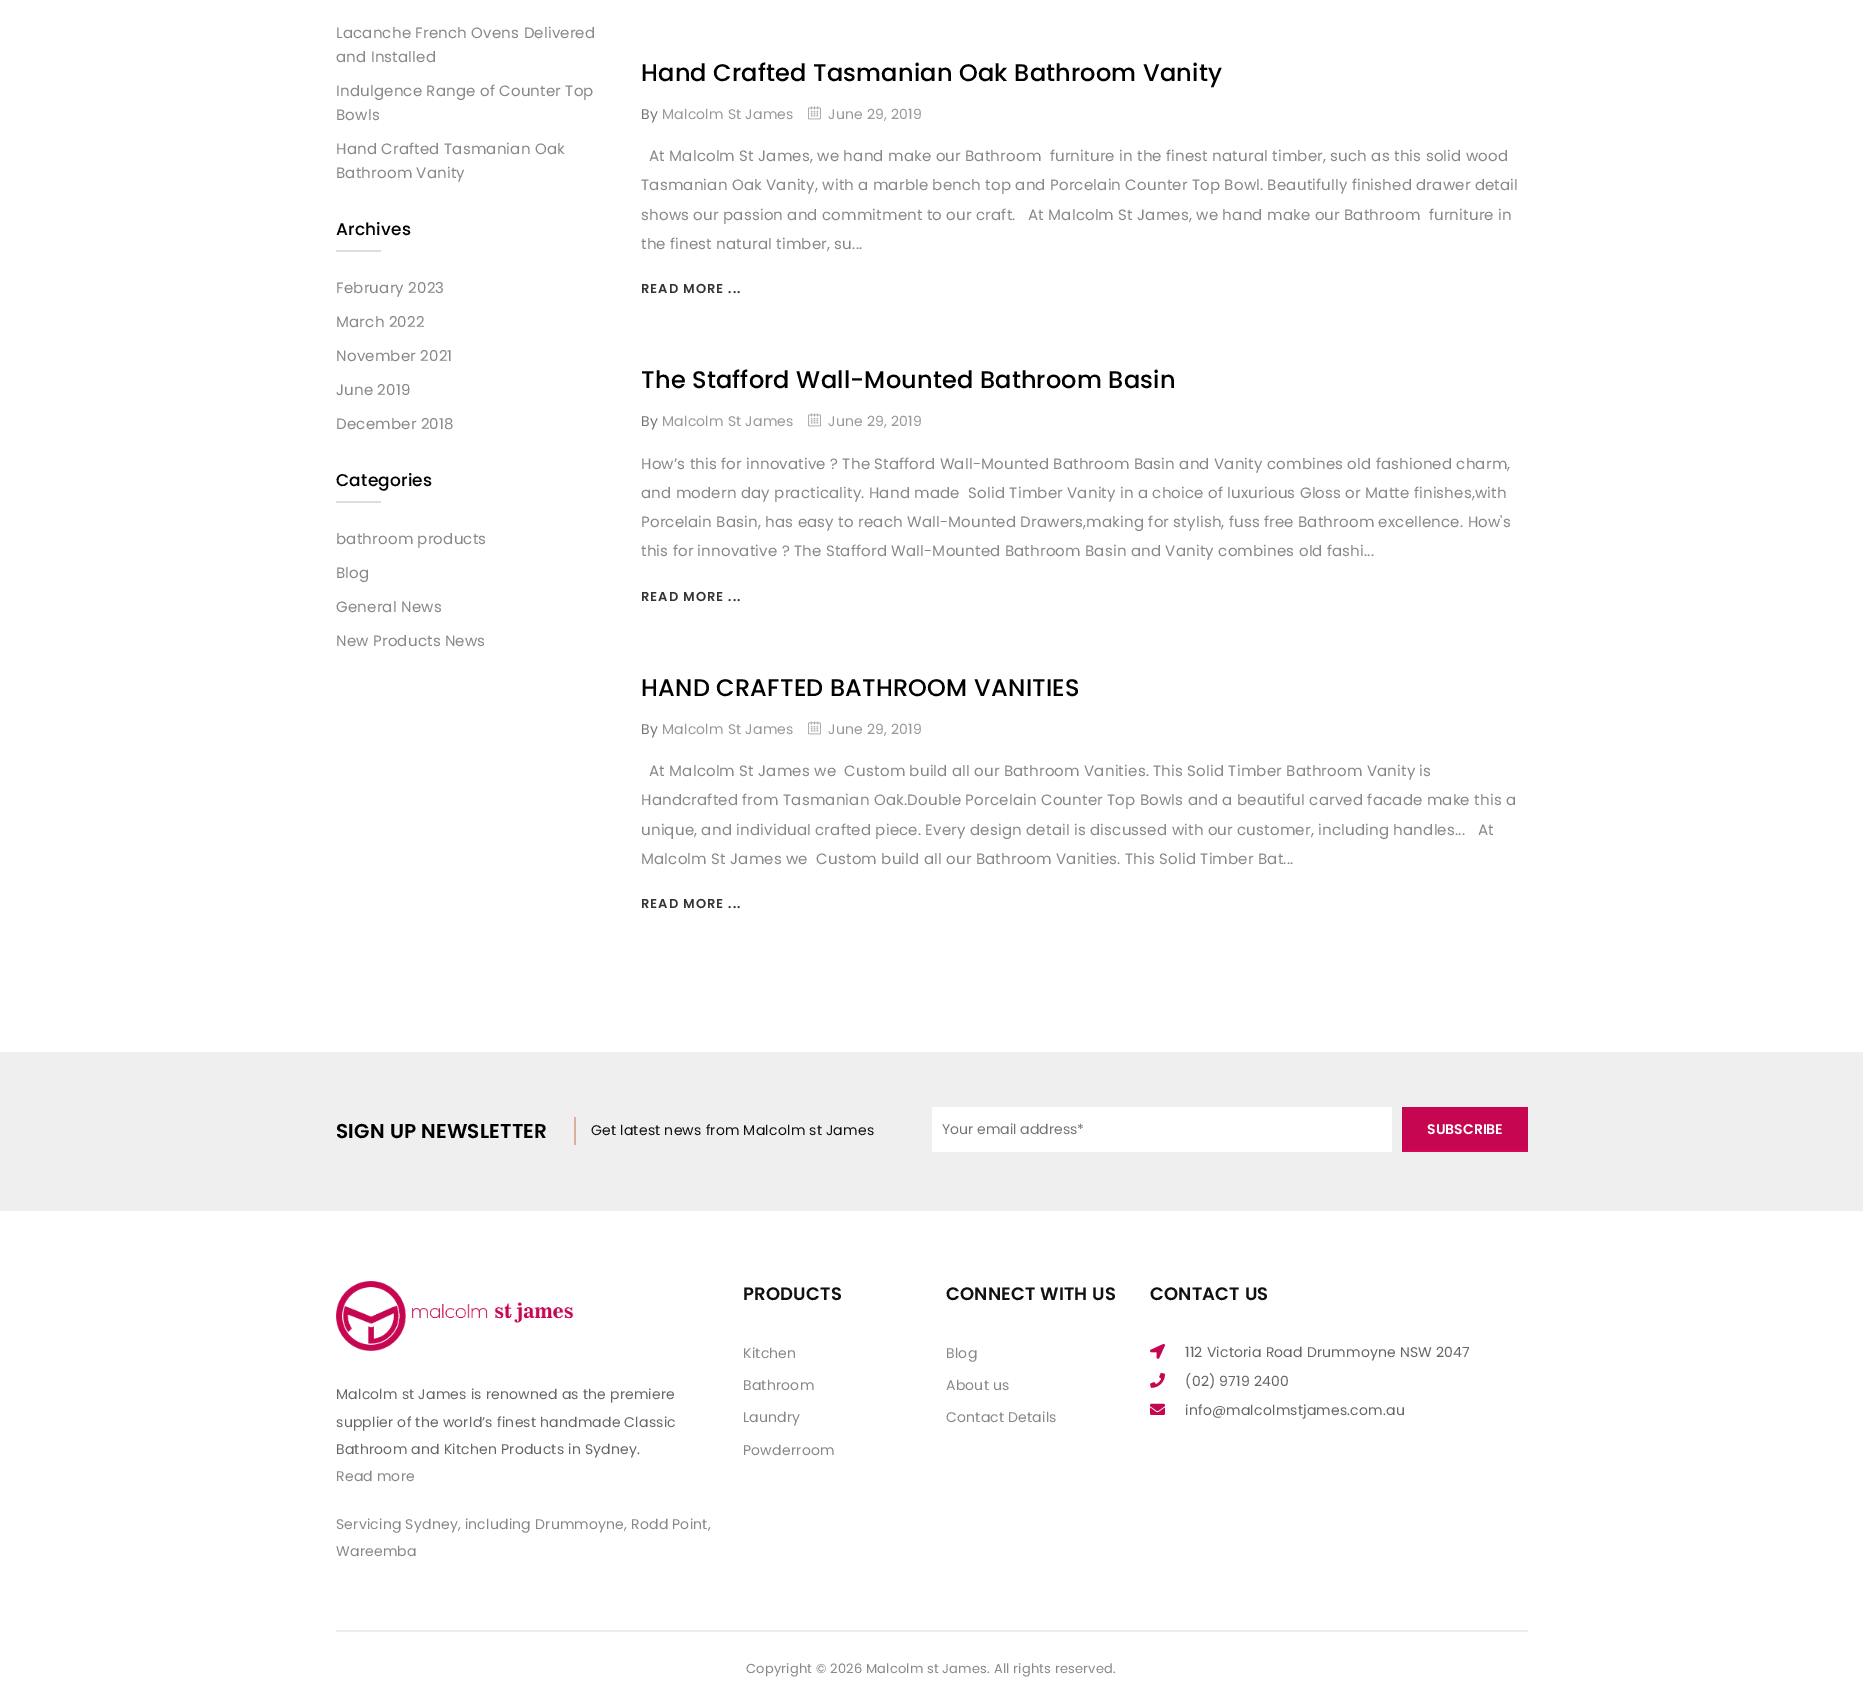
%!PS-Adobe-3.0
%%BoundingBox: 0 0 1863 1706
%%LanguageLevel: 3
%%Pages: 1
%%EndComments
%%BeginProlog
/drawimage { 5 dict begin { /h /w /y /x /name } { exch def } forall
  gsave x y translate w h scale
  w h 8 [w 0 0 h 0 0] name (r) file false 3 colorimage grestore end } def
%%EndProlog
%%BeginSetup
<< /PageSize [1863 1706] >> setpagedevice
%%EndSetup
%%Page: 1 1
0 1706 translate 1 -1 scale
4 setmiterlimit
1 setgray
0 0 1863 1706 rectfill
0.871 setgray
336 250 45 2 rectfill
336 501 45 2 rectfill
(images/1.raw) 808 106 13 14 drawimage
(images/1.raw) 808 413 13 14 drawimage
(images/1.raw) 808 721 13 14 drawimage
0.937 setgray
0 1052 1863 159 rectfill
0.863 0.682 0.624 setrgbcolor
574 1117 2 28 rectfill
1 setgray
932 1107 460 45 rectfill
0.776 0.024 0.318 setrgbcolor
1402 1107 126 43 rectfill
0.847 0.024 0.341 setrgbcolor
1402 1150 126 2 rectfill
(images/2.raw) 1150 1343 15 16 drawimage
(images/3.raw) 1150 1372 15 16 drawimage
(images/4.raw) 1150 1403 15 12 drawimage
(images/5.raw) 336 1281 238 70 drawimage
0.914 0.929 0.941 setrgbcolor
336 1630 1192 2 rectfill
/Poppins-Regular [15 0 0 -15 0 0] selectfont
0.533 setgray
336 38 moveto 0.2 0 (Lacanche French Ovens Delivered) ashow
336 62 moveto 0.2 0 (and Installed) ashow
336 96 moveto 0.2 0 (Indulgence Range of Counter Top) ashow
336 120 moveto 0.2 0 (Bowls) ashow
336 154 moveto 0.2 0 (Hand Crafted Tasmanian Oak) ashow
336 178 moveto 0.2 0 (Bathroom Vanity) ashow
/Poppins-Medium [17 0 0 -17 0 0] selectfont
0 setgray
336 235 moveto 0.2 0 (Archives) ashow
/Poppins-Regular [15 0 0 -15 0 0] selectfont
0.533 setgray
336 293 moveto 0.2 0 (February 2023) ashow
336 327 moveto 0.2 0 (March 2022) ashow
336 361 moveto 0.2 0 (November 2021) ashow
336 395 moveto 0.2 0 (June 2019) ashow
336 429 moveto 0.2 0 (December 2018) ashow
/Poppins-Medium [17 0 0 -17 0 0] selectfont
0 setgray
336 486 moveto 0.2 0 (Categories) ashow
/Poppins-Regular [15 0 0 -15 0 0] selectfont
0.533 setgray
336 544 moveto 0.2 0 (bathroom products) ashow
336 578 moveto 0.2 0 (Blog) ashow
336 612 moveto 0.2 0 (General News) ashow
336 646 moveto 0.2 0 (New Products News) ashow
/Poppins-Medium [24 0 0 -24 0 0] selectfont
0 setgray
641 81 moveto 0.2 0 (Hand Crafted Tasmanian Oak Bathroom Vanity) ashow
/Poppins-Regular [14 0 0 -14 0 0] selectfont
0.459 setgray
641 119 moveto 0.2 0 (By) ashow
0.6 setgray
662 119 moveto 0.2 0 (Malcolm St James) ashow
828 119 moveto 0.2 0 (June 29, 2019) ashow
/Poppins-Regular [15 0 0 -15 0 0] selectfont
0.533 setgray
649 161 moveto 0.2 0 (At Malcolm St James, we hand make our Bathroom  furniture in the finest natural timber, such as this solid wood) ashow
641 190 moveto 0.2 0 (Tasmanian Oak Vanity, with a marble bench top and Porcelain Counter Top Bowl. Beautifully finished drawer detail) ashow
641 220 moveto 0.2 0 (shows our passion and commitment to our craft.) ashow
1028 220 moveto 0.2 0 (At Malcolm St James, we hand make our Bathroom  furniture in) ashow
641 249 moveto 0.2 0 (the finest natural timber, su...) ashow
/Poppins-SemiBold [13 0 0 -13 0 0] selectfont
0.2 setgray
641 293 moveto 1 0 (READ MORE ...) ashow
/Poppins-Medium [24 0 0 -24 0 0] selectfont
0 setgray
641 388 moveto 0.2 0 (The Stafford Wall-Mounted Bathroom Basin) ashow
/Poppins-Regular [14 0 0 -14 0 0] selectfont
0.459 setgray
641 426 moveto 0.2 0 (By) ashow
0.6 setgray
662 426 moveto 0.2 0 (Malcolm St James) ashow
828 426 moveto 0.2 0 (June 29, 2019) ashow
/Poppins-Regular [15 0 0 -15 0 0] selectfont
0.533 setgray
641 469 moveto 0.2 0 (How’s this for innovative ? The Stafford Wall-Mounted Bathroom Basin and Vanity combines old fashioned charm,) ashow
641 498 moveto 0.2 0 (and modern day practicality. Hand made  Solid Timber Vanity in a choice of luxurious Gloss or Matte finishes,with) ashow
641 527 moveto 0.2 0 (Porcelain Basin, has easy to reach Wall-Mounted Drawers,making for stylish, fuss free Bathroom excellence. How's) ashow
641 556 moveto 0.2 0 (this for innovative ? The Stafford Wall-Mounted Bathroom Basin and Vanity combines old fashi...) ashow
/Poppins-SemiBold [13 0 0 -13 0 0] selectfont
0.2 setgray
641 601 moveto 1 0 (READ MORE ...) ashow
/Poppins-Medium [24 0 0 -24 0 0] selectfont
0 setgray
641 696 moveto 0.2 0 (HAND CRAFTED BATHROOM VANITIES) ashow
/Poppins-Regular [14 0 0 -14 0 0] selectfont
0.459 setgray
641 734 moveto 0.2 0 (By) ashow
0.6 setgray
662 734 moveto 0.2 0 (Malcolm St James) ashow
828 734 moveto 0.2 0 (June 29, 2019) ashow
/Poppins-Regular [15 0 0 -15 0 0] selectfont
0.533 setgray
649 776 moveto 0.2 0 (At Malcolm St James we  Custom build all our Bathroom Vanities. This Solid Timber Bathroom Vanity is) ashow
641 805 moveto 0.2 0 (Handcrafted from Tasmanian Oak.Double Porcelain Counter Top Bowls and a beautiful carved facade make this a) ashow
641 835 moveto 0.2 0 (unique, and individual crafted piece. Every design detail is discussed with our customer, including handles...) ashow
1478 835 moveto 0.2 0 (At) ashow
641 864 moveto 0.2 0 (Malcolm St James we  Custom build all our Bathroom Vanities. This Solid Timber Bat...) ashow
/Poppins-SemiBold [13 0 0 -13 0 0] selectfont
0.2 setgray
641 908 moveto 1 0 (READ MORE ...) ashow
/Poppins-SemiBold [20 0 0 -20 0 0] selectfont
0 setgray
336 1138 moveto 0.2 0 (SIGN UP NEWSLETTER) ashow
/Poppins-Regular [14 0 0 -14 0 0] selectfont
0.067 setgray
591 1135 moveto 0.2 0 (Get latest news from Malcolm st James) ashow
0.459 setgray
942 1134 moveto (Your email address*) show
/Poppins-SemiBold [14 0 0 -14 0 0] selectfont
1 setgray
1427 1134 moveto (SUBSCRIBE) show
/Poppins-SemiBold [18 0 0 -18 0 0] selectfont
0.067 setgray
743 1300 moveto 0.2 0 (PRODUCTS) ashow
/Poppins-Regular [14 0 0 -14 0 0] selectfont
0.533 setgray
743 1358 moveto 0.2 0 (Kitchen) ashow
743 1390 moveto 0.2 0 (Bathroom) ashow
743 1422 moveto 0.2 0 (Laundry) ashow
743 1455 moveto 0.2 0 (Powderroom) ashow
/Poppins-SemiBold [18 0 0 -18 0 0] selectfont
0.067 setgray
946 1300 moveto 0.2 0 (CONNECT WITH US) ashow
/Poppins-Regular [14 0 0 -14 0 0] selectfont
0.533 setgray
946 1358 moveto 0.2 0 (Blog) ashow
946 1390 moveto 0.2 0 (About us) ashow
946 1422 moveto 0.2 0 (Contact Details) ashow
/Poppins-SemiBold [18 0 0 -18 0 0] selectfont
0.067 setgray
1150 1300 moveto 0.2 0 (CONTACT US) ashow
/Poppins-Regular [14 0 0 -14 0 0] selectfont
0.4 setgray
1185 1357 moveto 0.2 0 (112 Victoria Road Drummoyne NSW 2047) ashow
1185 1386 moveto 0.2 0 (\(02\) 9719 2400) ashow
1185 1415 moveto 0.2 0 (info@malcolmstjames.com.au) ashow
336 1399 moveto 0.2 0 (Malcolm st James is renowned as the premiere) ashow
336 1427 moveto 0.2 0 (supplier of the world’s finest handmade Classic) ashow
336 1454 moveto 0.2 0 (Bathroom and Kitchen Products in Sydney.) ashow
0.533 setgray
336 1481 moveto 0.2 0 (Read more) ashow
336 1529 moveto 0.2 0 (Servicing Sydney, including Drummoyne, Rodd Point,) ashow
336 1556 moveto 0.2 0 (Wareemba) ashow
/Poppins-Regular [13 0 0 -13 0 0] selectfont
746 1673 moveto 0.2 0 (Copyright © 2026 Malcolm st James. All rights reserved.) ashow
showpage
%%EOF
